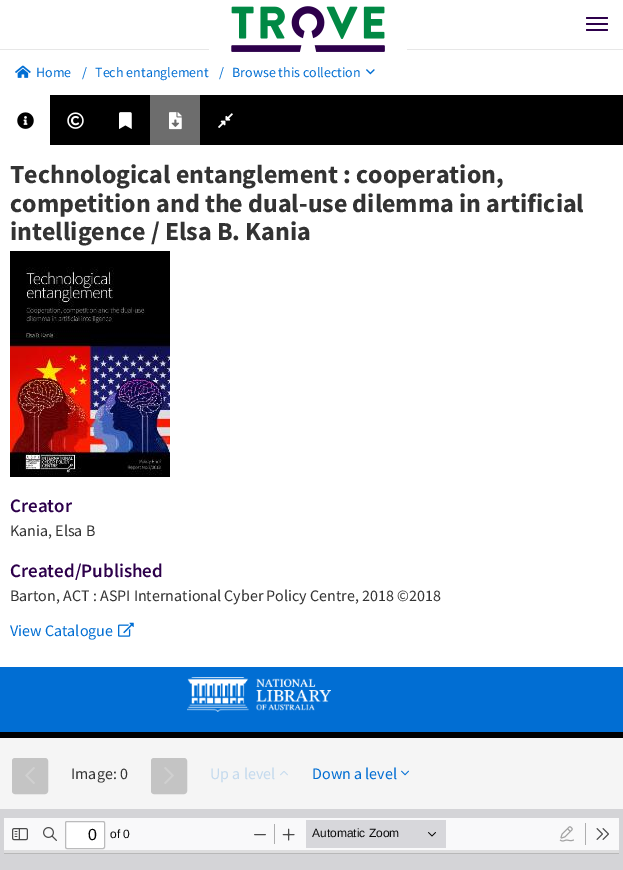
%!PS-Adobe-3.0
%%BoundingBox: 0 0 623 870
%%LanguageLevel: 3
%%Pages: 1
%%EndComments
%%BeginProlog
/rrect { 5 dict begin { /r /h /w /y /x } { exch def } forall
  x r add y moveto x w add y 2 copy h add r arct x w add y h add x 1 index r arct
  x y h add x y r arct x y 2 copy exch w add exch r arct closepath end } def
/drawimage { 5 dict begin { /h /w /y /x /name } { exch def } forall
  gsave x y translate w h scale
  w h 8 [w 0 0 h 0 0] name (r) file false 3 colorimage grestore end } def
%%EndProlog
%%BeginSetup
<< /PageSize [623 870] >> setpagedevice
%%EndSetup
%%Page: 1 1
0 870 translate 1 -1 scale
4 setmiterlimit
0.831 0.831 0.843 setrgbcolor
0 0 623 870 rectfill
1 setgray
0 0 623 49 rectfill
0.906 setgray
0 49 623 1 rectfill
1 setgray
209 49 198 1 rectfill
0 50 623 45 rectfill
(images/1.raw) 231 6 154 46 drawimage
0.176 0 0.294 setrgbcolor
586 17 22 2 1 rrect fill
586 23 22 2 1 rrect fill
586 29 22 2 1 rrect fill
(images/2.raw) 15 65 16 13 drawimage
(images/3.raw) 366 69 9 6 drawimage
1 setgray
0 145 623 522 rectfill
0 setgray
50 95 573 50 rectfill
1 setgray
0 95 50 50 rectfill
(images/4.raw) 17 112 17 17 drawimage
(images/5.raw) 67 112 17 17 drawimage
(images/6.raw) 119 112 13 17 drawimage
0.427 setgray
150 95 50 50 rectfill
(images/7.raw) 169 112 13 18 drawimage
(images/8.raw) 218 113 15 15 drawimage
(images/9.raw) 10 251 160 226 drawimage
(images/10.raw) 118 622 16 15 drawimage
0.004 0.431 0.827 setrgbcolor
0 667 623 65 rectfill
(images/11.raw) 187 677 144 35 drawimage
0 setgray
0 732 623 6 rectfill
0.961 setgray
0 738 623 71 rectfill
0.769 setgray
13 759 34 34 2 rrect gsave fill grestore
2 setlinewidth
stroke
(images/12.raw) 25 767 10 17 drawimage
152 759 34 34 2 rrect gsave fill grestore
stroke
(images/13.raw) 164 767 10 17 drawimage
(images/14.raw) 280 771 8 5 drawimage
(images/15.raw) 401 770 8 6 drawimage
0.976 0.976 0.98 setrgbcolor
4 818 615 32 rectfill
(images/16.raw) 12 828 16 13 drawimage
(images/17.raw) 43 827 14 14 drawimage
1 setgray
65.5 821.5 39 27 1.5 rrect gsave fill grestore
0.733 0.733 0.737 setrgbcolor
1 setlinewidth
stroke
(images/18.raw) 254 834 12 2 drawimage
0.682 0.682 0.686 setrgbcolor
274 824 1 20 rectfill
(images/19.raw) 282 828 13 13 drawimage
0.843 0.843 0.859 setrgbcolor
306 820 140 28 rectfill
(images/20.raw) 428 832 8 5 drawimage
(images/21.raw) 559 826 15 16 drawimage
0.682 0.682 0.686 setrgbcolor
585 823 1 22 rectfill
(images/22.raw) 596 828 13 12 drawimage
0.867 0.867 0.871 setrgbcolor
4 850 615 3 rectfill
0.722 setgray
4 853 615 1 rectfill
/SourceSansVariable-Regular [14 0 0 -14 0 0] selectfont
0.004 0.431 0.827 setrgbcolor
36 77 moveto (Home) show
82 77 moveto (/) show
95 77 moveto (Tech entanglement) show
219 77 moveto (/) show
232 77 moveto (Browse this collection) show
/SourceSansVariable-Bold [26 0 0 -26 0 0] selectfont
0.2 setgray
10 183 moveto (Technological entanglement : cooperation,) show
10 212 moveto (competition and the dual-use dilemma in artificial) show
10 240 moveto (intelligence / Elsa B. Kania) show
/SourceSansVariable-SemiBold [19 0 0 -19 0 0] selectfont
0.176 0 0.294 setrgbcolor
10 512 moveto (Creator) show
/SourceSansVariable-Regular [16 0 0 -16 0 0] selectfont
0.2 setgray
10 536 moveto (Kania, Elsa B) show
/SourceSansVariable-SemiBold [19 0 0 -19 0 0] selectfont
0.176 0 0.294 setrgbcolor
10 577 moveto (Created/Published) show
/SourceSansVariable-Regular [16 0 0 -16 0 0] selectfont
0.2 setgray
10 601 moveto (Barton, ACT : ASPI International Cyber Policy Centre, 2018 ©2018) show
0.004 0.431 0.827 setrgbcolor
10 636 moveto (View Catalogue) show
0.2 setgray
71 779 moveto (Image: 0) show
0.769 0.855 0.933 setrgbcolor
210 779 moveto (Up a level) show
0.004 0.431 0.827 setrgbcolor
312 779 moveto (Down a level) show
/LiberationSans-Regular [16 0 0 -16 0 0] selectfont
0.024 setgray
88 840 moveto (0) show
/LiberationSans-Regular [12 0 0 -12 0 0] selectfont
0.047 0.047 0.051 setrgbcolor
110 838 moveto (of 0) show
312 837 moveto (Automatic Zoom) show
showpage
%%EOF
